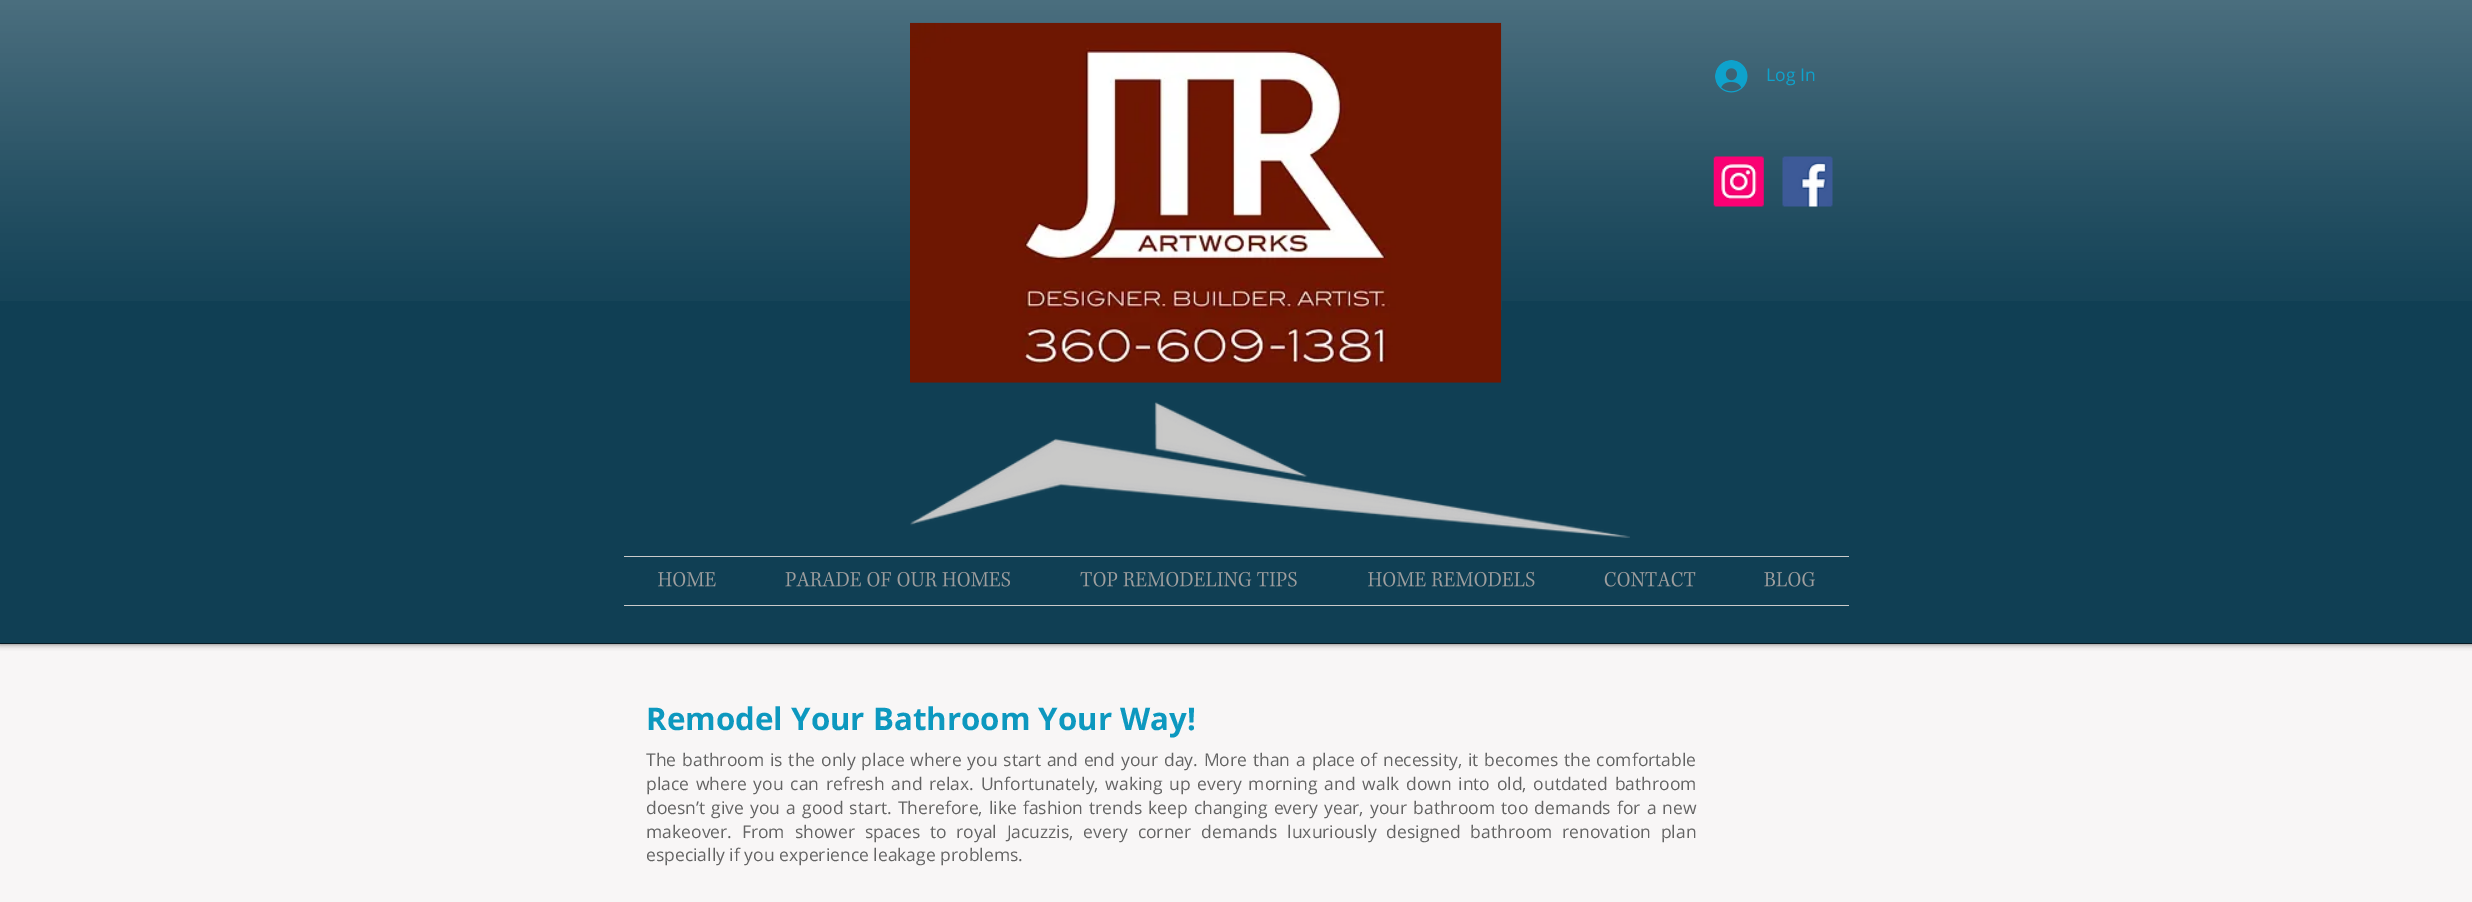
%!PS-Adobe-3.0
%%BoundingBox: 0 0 2472 902
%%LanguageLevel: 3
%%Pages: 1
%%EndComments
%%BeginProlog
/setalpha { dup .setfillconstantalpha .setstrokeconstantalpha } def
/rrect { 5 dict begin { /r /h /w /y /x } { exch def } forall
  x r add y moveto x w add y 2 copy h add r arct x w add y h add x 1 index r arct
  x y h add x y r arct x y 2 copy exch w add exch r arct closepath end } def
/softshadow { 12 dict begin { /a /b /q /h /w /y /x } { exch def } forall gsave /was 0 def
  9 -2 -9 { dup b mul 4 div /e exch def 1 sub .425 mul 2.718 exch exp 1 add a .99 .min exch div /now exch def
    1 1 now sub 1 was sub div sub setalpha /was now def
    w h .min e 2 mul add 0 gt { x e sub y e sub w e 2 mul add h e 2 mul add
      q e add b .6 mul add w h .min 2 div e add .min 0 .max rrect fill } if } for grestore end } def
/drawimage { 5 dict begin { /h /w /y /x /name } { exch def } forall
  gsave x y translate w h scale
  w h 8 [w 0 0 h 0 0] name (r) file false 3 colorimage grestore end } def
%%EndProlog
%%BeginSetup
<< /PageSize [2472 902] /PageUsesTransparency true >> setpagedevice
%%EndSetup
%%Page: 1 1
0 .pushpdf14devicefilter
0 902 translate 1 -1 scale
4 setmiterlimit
0.973 0.965 0.965 setrgbcolor
0 0 2472 902 rectfill
0 setgray
0 -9 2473 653 0 3 0.6 softshadow
0.063 0.247 0.329 setrgbcolor
0 0 2472 643 rectfill
(images/1.raw) 0 0 2472 301 drawimage
0.024 0.098 0.133 setrgbcolor
0 643 2472 1 rectfill
(images/2.raw) 910 22 592 361 drawimage
(images/3.raw) 1715 60 33 33 drawimage
(images/4.raw) 1713 156 51 51 drawimage
(images/5.raw) 1782 156 51 51 drawimage
(images/6.raw) 910 402 720 136 drawimage
0.792 setgray
624 556 1225 1 rectfill
624 605 1225 1 rectfill
(images/7.raw) 658 571 58 16 drawimage
(images/8.raw) 785 571 225 16 drawimage
(images/9.raw) 1080 571 217 16 drawimage
(images/10.raw) 1368 571 167 16 drawimage
(images/11.raw) 1604 571 92 16 drawimage
(images/12.raw) 1764 571 51 16 drawimage
/OpenSans-Regular [17.5 0 0 -17.5 0 0] selectfont
0.055 0.635 0.8 setrgbcolor
1766 81 moveto (Log In) show
/OpenSans-Bold [31.25 0 0 -31.25 0 0] selectfont
0.051 0.596 0.749 setrgbcolor
646 730 moveto (Remodel Your Bathroom Your Way!) show
/OpenSans-Regular [17.5 0 0 -17.5 0 0] selectfont
0.392 setgray
646 766 moveto 1.3 0 32 (The bathroom is the only place where you start and end your day. More than a place of necessity, it becomes the comfortable) widthshow
646 790 moveto 2.1 0 32 (place where you can refresh and relax. Unfortunately, waking up every morning and walk down into old, outdated bathroom) widthshow
646 814 moveto 1.5 0 32 (doesn’t give you a good start. Therefore, like fashion trends keep changing every year, your bathroom too demands for a new) widthshow
646 838 moveto 5.25 0 32 (makeover. From shower spaces to royal Jacuzzis, every corner demands luxuriously designed bathroom renovation plan) widthshow
646 861 moveto (especially if you experience leakage problems.) show
.poppdf14devicefilter showpage
%%EOF
